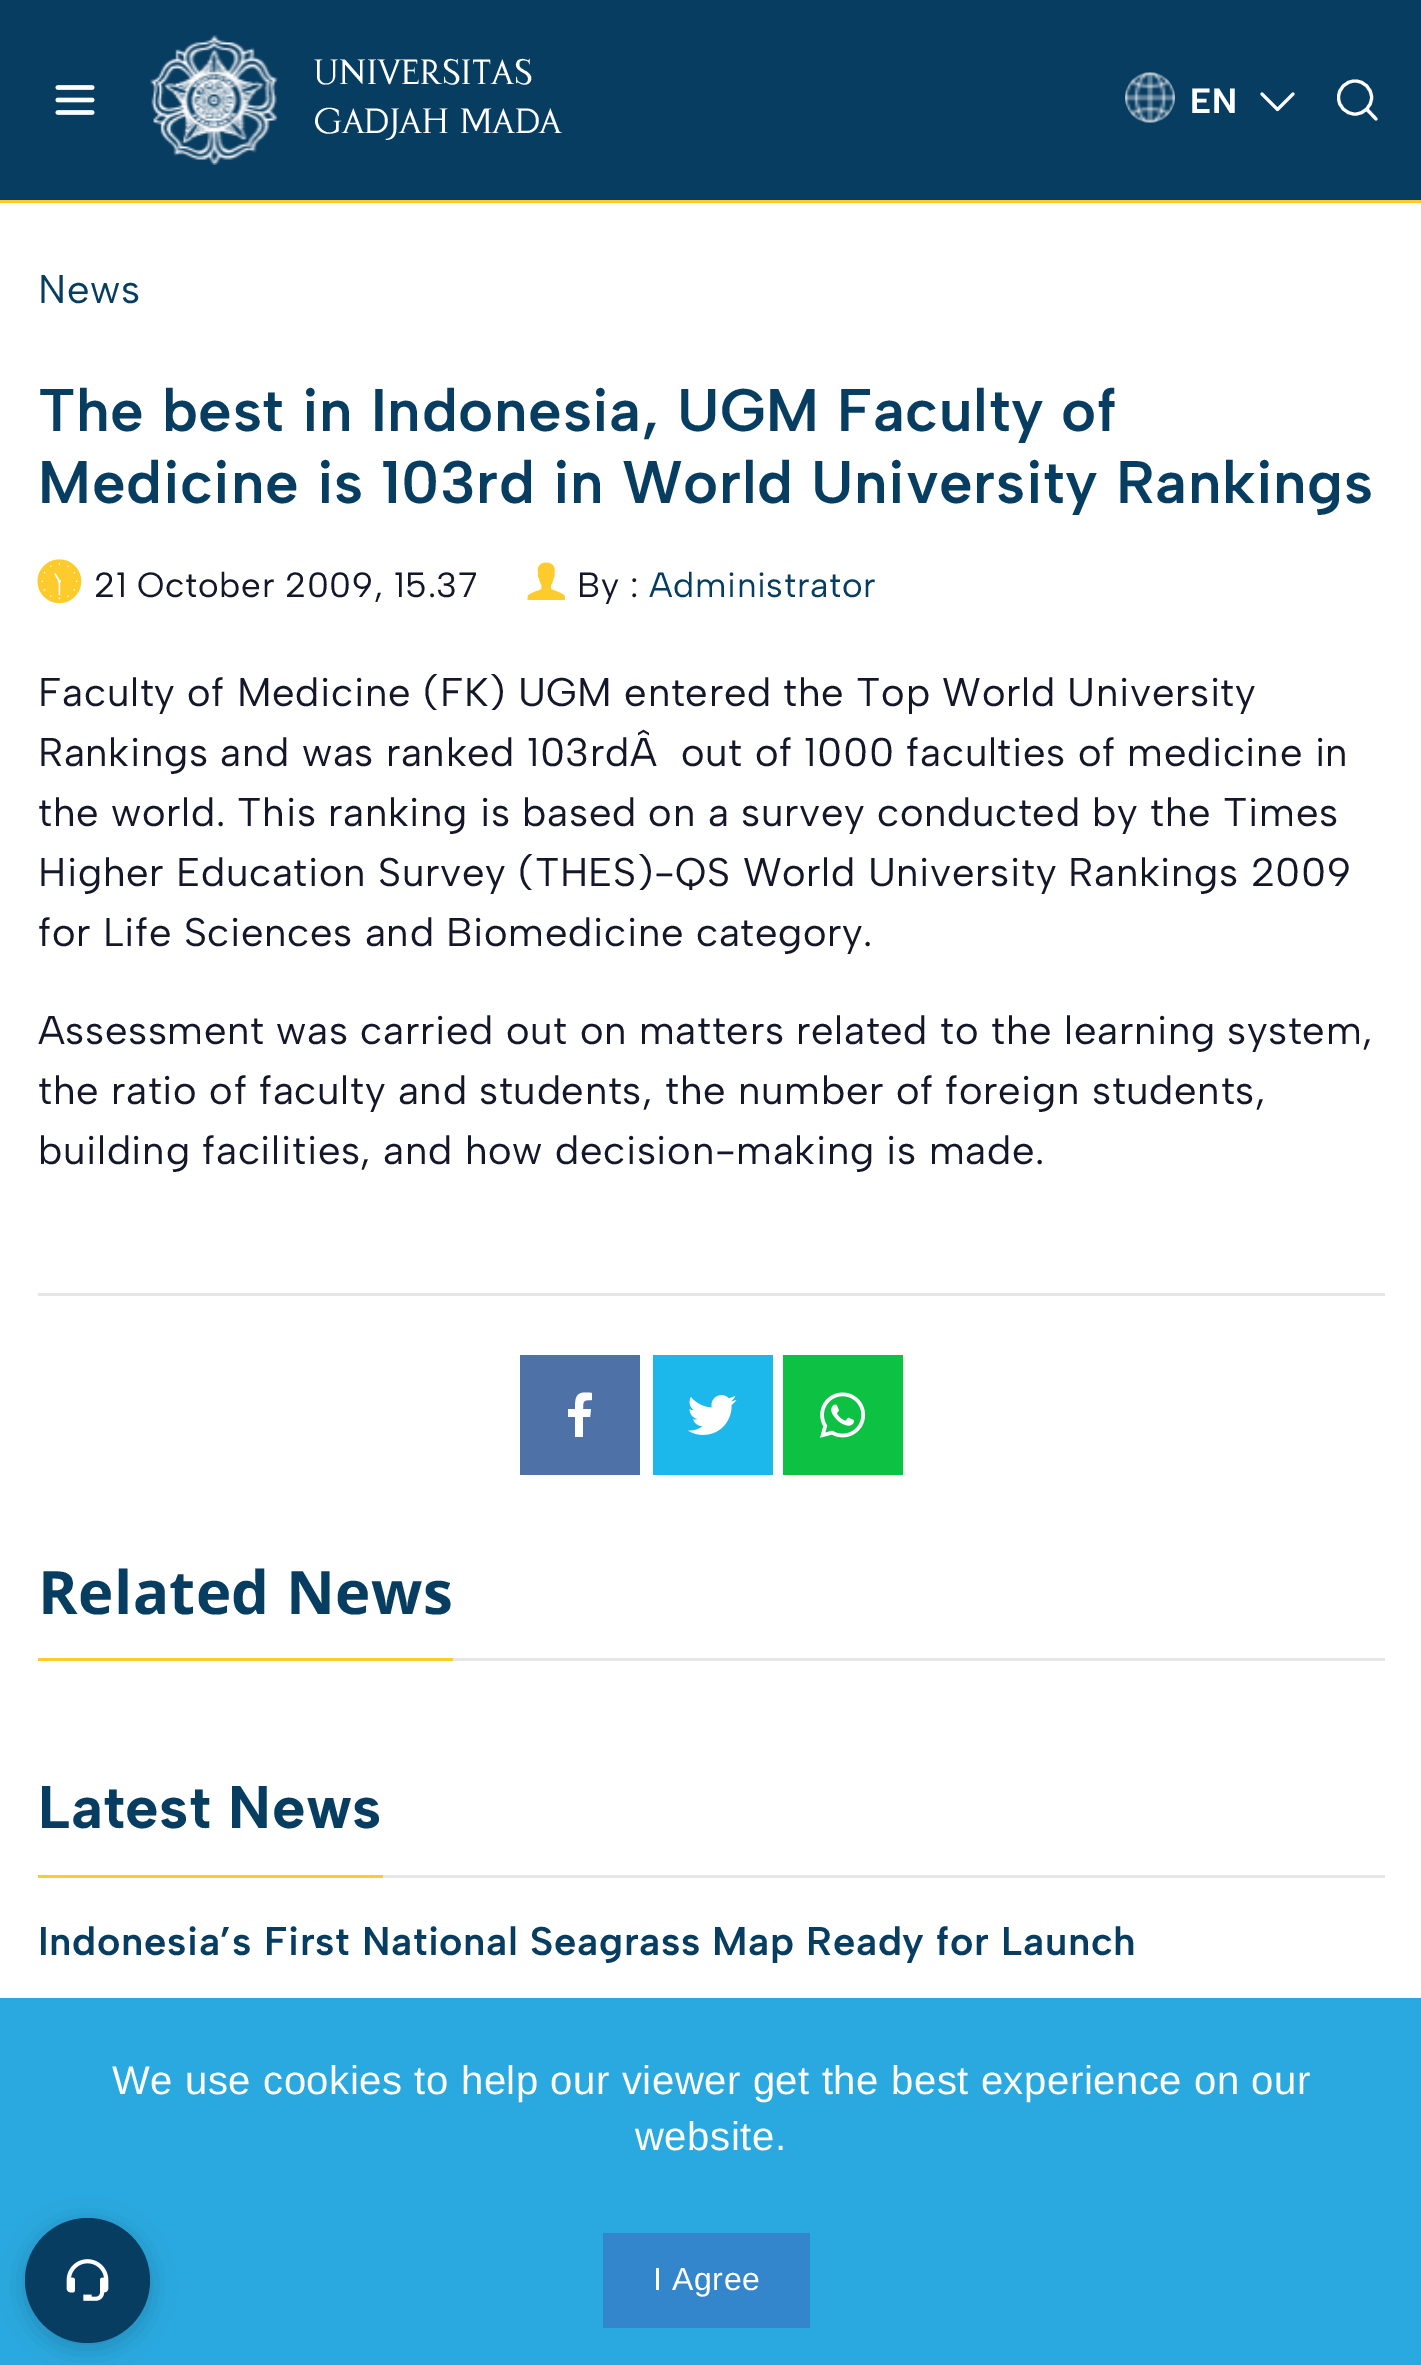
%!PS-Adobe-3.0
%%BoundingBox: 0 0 1421 2366
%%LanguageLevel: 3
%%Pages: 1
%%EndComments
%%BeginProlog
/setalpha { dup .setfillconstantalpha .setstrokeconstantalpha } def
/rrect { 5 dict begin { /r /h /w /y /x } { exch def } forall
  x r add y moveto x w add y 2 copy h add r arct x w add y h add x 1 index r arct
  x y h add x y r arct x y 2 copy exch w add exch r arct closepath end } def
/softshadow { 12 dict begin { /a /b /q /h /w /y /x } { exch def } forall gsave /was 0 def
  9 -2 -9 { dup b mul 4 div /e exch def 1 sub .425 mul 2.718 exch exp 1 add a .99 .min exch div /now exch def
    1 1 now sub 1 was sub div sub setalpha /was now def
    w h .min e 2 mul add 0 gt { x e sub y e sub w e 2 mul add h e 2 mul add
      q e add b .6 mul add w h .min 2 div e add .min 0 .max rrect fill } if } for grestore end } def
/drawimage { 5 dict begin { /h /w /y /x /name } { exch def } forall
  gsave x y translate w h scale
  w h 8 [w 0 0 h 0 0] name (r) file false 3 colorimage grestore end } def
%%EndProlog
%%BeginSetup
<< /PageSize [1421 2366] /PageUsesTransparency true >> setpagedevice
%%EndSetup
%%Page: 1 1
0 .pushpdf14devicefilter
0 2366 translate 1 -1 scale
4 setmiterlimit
1 setgray
0 0 1421 2366 rectfill
0.031 0.239 0.384 setrgbcolor
0 0 1421 200 rectfill
0.992 0.796 0.173 setrgbcolor
0 200 1421 3 rectfill
(images/1.raw) 55 85 40 30 drawimage
(images/2.raw) 150 35 128 130 drawimage
(images/3.raw) 1125 72 50 51 drawimage
1 setgray
3.1 setlinewidth
1 setlinecap
1 setlinejoin
newpath 1293 94 moveto 1277.5 109.5 lineto 1262 94 lineto stroke
0 setlinecap
0 setlinejoin
newpath 1355 97.5 16.5 0 360 arc closepath stroke
1 setlinecap
1 setlinejoin
newpath 1367 109.5 moveto 1376 119 lineto stroke
(images/4.raw) 37 559 45 45 drawimage
(images/5.raw) 527 562 38 38 drawimage
0.902 setgray
38 1293 1347 3 rectfill
0.306 0.443 0.659 setrgbcolor
520 1355 120 120 rectfill
1 setgray
newpath 583 1437 moveto 583 1417 lineto 590 1417 lineto 591 1409 lineto 583 1409 lineto 583 1401 583 1400 592 1400 curveto 592 1393 lineto 577 1391 575 1395 575 1409 curveto 568 1409 lineto 568 1417 lineto 575 1417 lineto 575 1437 lineto closepath fill
0.11 0.718 0.922 setrgbcolor
653 1355 120 120 rectfill
(images/6.raw) 687 1395 50 40 drawimage
0.051 0.757 0.263 setrgbcolor
783 1355 120 120 rectfill
(images/7.raw) 820 1392 46 46 drawimage
0.902 setgray
453 1658 932 3 rectfill
0.992 0.796 0.173 setrgbcolor
38 1658 415 3 rectfill
0.902 setgray
383 1875 1002 3 rectfill
0.992 0.796 0.173 setrgbcolor
38 1875 345 3 rectfill
0.165 0.663 0.878 setrgbcolor
0 1998 1421 367 rectfill
0.882 0.82 0.671 setrgbcolor
0 2365 1421 1 rectfill
0 setgray
25 2223 125 125 62.5 12.5 0.2 softshadow
0.031 0.239 0.384 setrgbcolor
newpath 87.5 2280.5 62.5 0 360 arc closepath fill
(images/8.raw) 66 2259 43 42 drawimage
0.2 0.525 0.8 setrgbcolor
603 2233 207 95 rectfill
/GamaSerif-Regular [35 0 0 -35 0 0] selectfont
1 setgray
314 84 moveto 0.6 0 (UNIVERSITAS) ashow
314 133 moveto 0.6 0 (GADJAH MADA) ashow
/AlbertSans-Bold [35 0 0 -35 0 0] selectfont
1190 113 moveto 0.62 0 (EN) ashow
/AlbertSans-Regular [40 0 0 -40 0 0] selectfont
0.031 0.239 0.384 setrgbcolor
38 303 moveto 0.6 0 (News) ashow
/AlbertSans-SemiBold [60 0 0 -60 0 0] selectfont
38 431 moveto 0.6 0 (The best in Indonesia, UGM Faculty of) ashow
38 503 moveto 0.6 0 (Medicine is 103rd in World University Rankings) ashow
/AlbertSans-Regular [35 0 0 -35 0 0] selectfont
0.078 0.09 0.161 setrgbcolor
94 597 moveto 0.6 0 (21 October 2009, 15.37) ashow
577 597 moveto 0.6 0 (By :) ashow
0.031 0.239 0.384 setrgbcolor
649 597 moveto 0.6 0 (Administrator) ashow
/AlbertSans-Regular [40 0 0 -40 0 0] selectfont
0.078 0.09 0.161 setrgbcolor
38 706 moveto 0.62 0 (Faculty of Medicine \(FK\) UGM entered the Top World University) ashow
38 766 moveto 0.62 0 (Rankings and was ranked 103rdÂ  out of 1000 faculties of medicine in) ashow
38 826 moveto 0.62 0 (the world. This ranking is based on a survey conducted by the Times) ashow
38 886 moveto 0.62 0 (Higher Education Survey \(THES\)-QS World University Rankings 2009) ashow
38 946 moveto 0.62 0 (for Life Sciences and Biomedicine category.) ashow
38 1044 moveto 0.62 0 (Assessment was carried out on matters related to the learning system,) ashow
38 1104 moveto 0.62 0 (the ratio of faculty and students, the number of foreign students,) ashow
38 1164 moveto 0.62 0 (building facilities, and how decision-making is made.) ashow
/OpenSans-Bold [60 0 0 -60 0 0] selectfont
0.031 0.239 0.384 setrgbcolor
38 1614 moveto 0.4 0 (Related News) ashow
/AlbertSans-Bold [60 0 0 -60 0 0] selectfont
38 1828 moveto 0.4 0 (Latest News) ashow
/AlbertSans-SemiBold [40 0 0 -40 0 0] selectfont
38 1955 moveto 0.6 0 (Indonesia’s First National Seagrass Map Ready for Launch) ashow
/LiberationSans-Regular [40 0 0 -40 0 0] selectfont
1 setgray
112 2094 moveto 0.6 0 (We use cookies to help our viewer get the best experience on our) ashow
635 2150 moveto 0.6 0 (website.) ashow
/LiberationSans-Regular [32 0 0 -32 0 0] selectfont
653 2290 moveto 0.6 0 (I Agree) ashow
.poppdf14devicefilter showpage
%%EOF
